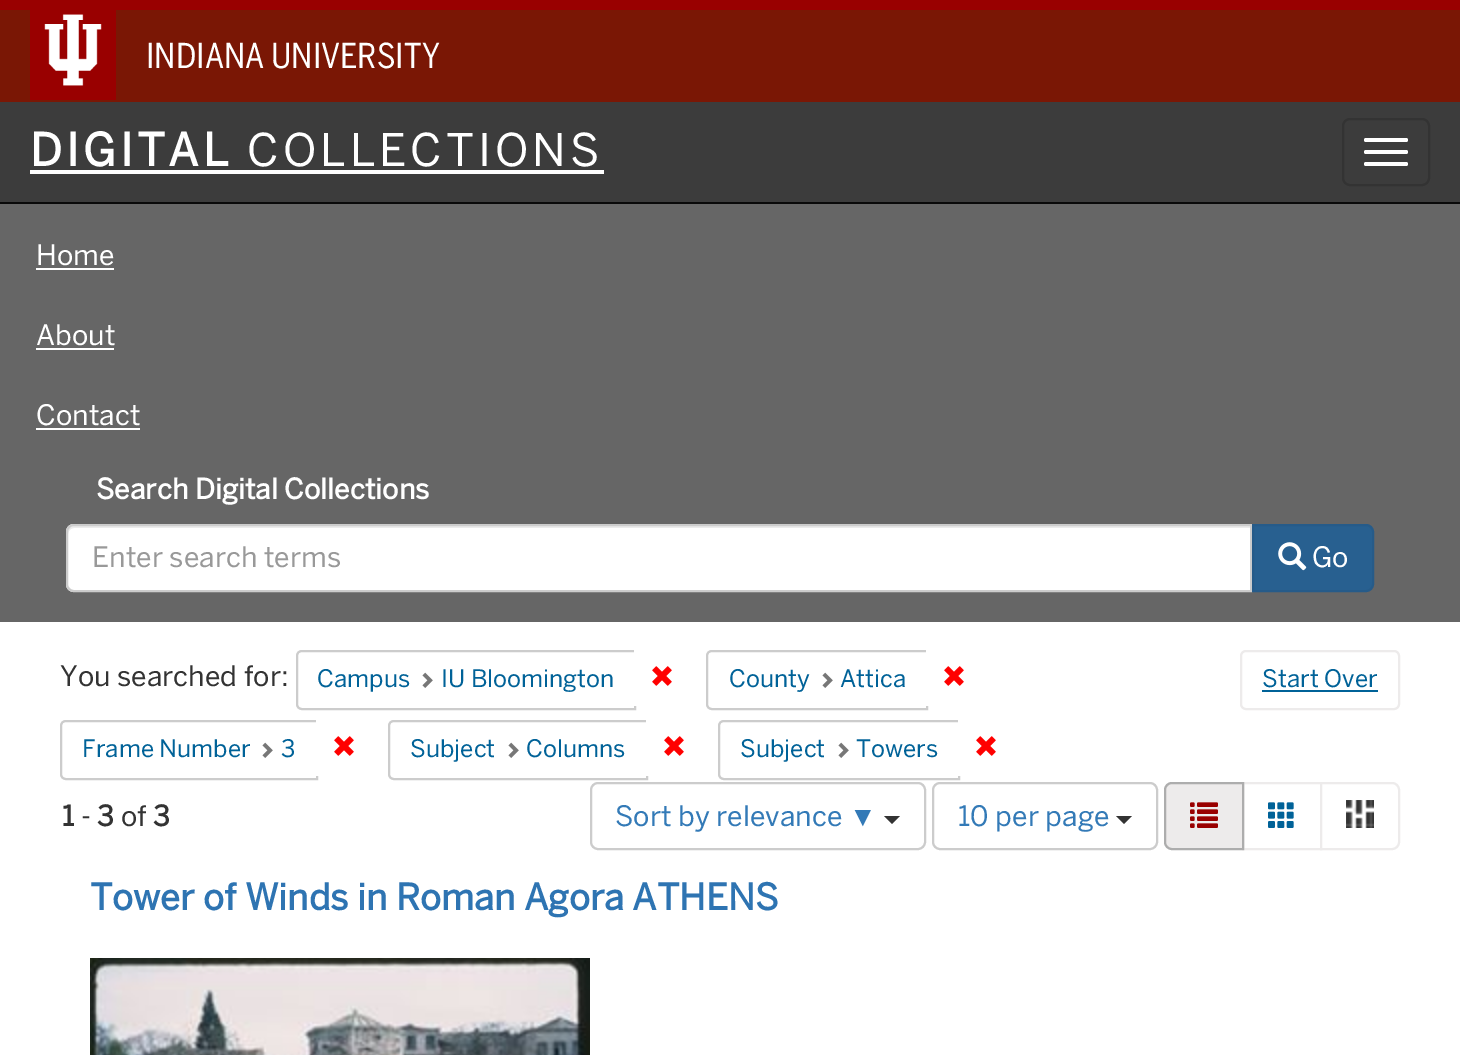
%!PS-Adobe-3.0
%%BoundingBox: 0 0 1460 1055
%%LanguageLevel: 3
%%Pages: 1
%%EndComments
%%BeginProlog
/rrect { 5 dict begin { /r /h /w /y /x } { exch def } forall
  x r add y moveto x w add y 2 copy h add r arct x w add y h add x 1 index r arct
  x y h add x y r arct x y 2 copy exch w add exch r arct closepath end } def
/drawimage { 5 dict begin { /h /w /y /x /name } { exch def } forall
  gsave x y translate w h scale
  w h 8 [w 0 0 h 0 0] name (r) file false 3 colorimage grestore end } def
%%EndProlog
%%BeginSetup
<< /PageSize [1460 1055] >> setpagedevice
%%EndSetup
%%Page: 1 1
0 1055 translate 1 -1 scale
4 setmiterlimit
1 setgray
0 0 1460 1055 rectfill
0.478 0.09 0.02 setrgbcolor
0 10 1460 92 rectfill
0.6 0 0 setrgbcolor
0 0 1460 10 rectfill
(images/1.raw) 30 10 86 90 drawimage
0.235 setgray
0 102 1460 100 rectfill
0.035 setgray
0 202 1460 2 rectfill
1 setgray
30 170 574 4 rectfill
0.2 setgray
2 setlinewidth
1343 119 86 66 7 rrect stroke
1 setgray
1364 138 44 4 2 rrect fill
1364 150 44 4 2 rrect fill
1364 162 44 4 2 rrect fill
0.4 setgray
0 204 1460 418 rectfill
1 setgray
36 268 78 2 rectfill
36 348 78 2 rectfill
36 428 104 2 rectfill
newpath 74 524 moveto 1252 524 lineto 1252 592 lineto 74 592 lineto 69.5 592 66 588.5 66 584 curveto 66 532 lineto 66 527.5 69.5 524 74 524 curveto closepath fill
0.925 setgray
newpath 74 528 moveto 1250 528 lineto 1250 526 lineto 74 526 lineto 71 526 68 529 68 532 curveto 68 534 lineto 68 531 71 528 74 528 curveto closepath fill
0.8 setgray
newpath 74 525 moveto 1251 525 lineto 1251 591 lineto 74 591 lineto 70 591 67 588 67 584 curveto 67 532 lineto 67 528 70 525 74 525 curveto closepath stroke
0.157 0.376 0.565 setrgbcolor
newpath 1253 525 moveto 1366 525 lineto 1370 525 1373 528 1373 532 curveto 1373 584 lineto 1373 588 1370 591 1366 591 curveto 1253 591 lineto closepath gsave fill grestore
0.149 0.357 0.537 setrgbcolor
stroke
(images/2.raw) 1278 542 29 29 drawimage
0.8 setgray
newpath 302 651 moveto 635 651 lineto 635 709 lineto 302 709 lineto 299 709 297 707 297 704 curveto 297 656 lineto 297 653 299 651 302 651 curveto closepath stroke
(images/3.raw) 422 672 11 16 drawimage
1 setgray
newpath 634 650 moveto 684 650 lineto 687.5 650 690 652.5 690 656 curveto 690 700 lineto 690 703.5 687.5 706 684 706 curveto 634 706 lineto closepath fill
(images/4.raw) 652 666 20 20 drawimage
0.8 setgray
newpath 712 651 moveto 927 651 lineto 927 709 lineto 712 709 lineto 709 709 707 707 707 704 curveto 707 656 lineto 707 653 709 651 712 651 curveto closepath stroke
(images/3.raw) 822 672 11 16 drawimage
1 setgray
newpath 926 650 moveto 976 650 lineto 979.5 650 982 652.5 982 656 curveto 982 700 lineto 982 703.5 979.5 706 976 706 curveto 926 706 lineto closepath fill
(images/4.raw) 944 666 20 20 drawimage
0.929 0.922 0.922 setrgbcolor
1241 651 158 58 5 rrect stroke
0 0.384 0.596 setrgbcolor
1262 690 116 2 rectfill
0.8 setgray
newpath 66 721 moveto 317 721 lineto 317 779 lineto 66 779 lineto 63 779 61 777 61 774 curveto 61 726 lineto 61 723 63 721 66 721 curveto closepath stroke
(images/3.raw) 262 742 11 16 drawimage
1 setgray
newpath 316 720 moveto 366 720 lineto 369.5 720 372 722.5 372 726 curveto 372 770 lineto 372 773.5 369.5 776 366 776 curveto 316 776 lineto closepath fill
(images/4.raw) 334 736 20 20 drawimage
0.8 setgray
newpath 394 721 moveto 647 721 lineto 647 779 lineto 394 779 lineto 391 779 389 777 389 774 curveto 389 726 lineto 389 723 391 721 394 721 curveto closepath stroke
(images/3.raw) 508 742 11 16 drawimage
1 setgray
newpath 646 720 moveto 696 720 lineto 699.5 720 702 722.5 702 726 curveto 702 770 lineto 702 773.5 699.5 776 696 776 curveto 646 776 lineto closepath fill
(images/4.raw) 664 736 20 20 drawimage
0.8 setgray
newpath 724 721 moveto 959 721 lineto 959 779 lineto 724 779 lineto 721 779 719 777 719 774 curveto 719 726 lineto 719 723 721 721 724 721 curveto closepath stroke
(images/3.raw) 838 742 11 16 drawimage
1 setgray
newpath 958 720 moveto 1008 720 lineto 1011.5 720 1014 722.5 1014 726 curveto 1014 770 lineto 1014 773.5 1011.5 776 1008 776 curveto 958 776 lineto closepath fill
(images/4.raw) 976 736 20 20 drawimage
0.8 setgray
591 783 334 66 7 rrect stroke
0.2 setgray
newpath 884 816 moveto 900 816 lineto 892 824 lineto closepath fill
0.8 setgray
933 783 224 66 7 rrect stroke
0.2 setgray
newpath 1116 816 moveto 1132 816 lineto 1124 824 lineto closepath fill
0.929 0.922 0.922 setrgbcolor
1243 783 78 66 rectstroke
newpath 1172 783 moveto 1243 783 lineto 1243 849 lineto 1172 849 lineto 1168 849 1165 846 1165 842 curveto 1165 790 lineto 1165 786 1168 783 1172 783 curveto closepath gsave fill grestore
0.678 setgray
stroke
(images/5.raw) 1190 802 28 26 drawimage
(images/6.raw) 1268 802 26 26 drawimage
1 setgray
newpath 1321 783 moveto 1392 783 lineto 1396 783 1399 786 1399 790 curveto 1399 842 lineto 1399 846 1396 849 1392 849 curveto 1321 849 lineto closepath gsave fill grestore
0.929 0.922 0.922 setrgbcolor
stroke
(images/7.raw) 1346 800 28 28 drawimage
(images/8.raw) 90 958 500 97 drawimage
/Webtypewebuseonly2-Regular [34 0 0 -34 0 0] selectfont
1 setgray
146 68 moveto (INDIANA UNIVERSITY) show
/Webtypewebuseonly-Bold [44.75 0 0 -44.75 0 0] selectfont
30 166 moveto 4 0 (DIGITAL) ashow
/Webtypewebuseonly-Regular [44.75 0 0 -44.75 0 0] selectfont
247 166 moveto 4 0 (COLLECTIONS) ashow
/Webtypewebuseonly-Regular [28 0 0 -28 0 0] selectfont
36 265 moveto (Home) show
36 345 moveto (About) show
36 425 moveto (Contact) show
/Webtypewebuseonly-Bold [28 0 0 -28 0 0] selectfont
96 499 moveto (Search Digital Collections) show
/Webtypewebuseonly-Regular [28 0 0 -28 0 0] selectfont
0.6 setgray
92 567 moveto (Enter search terms) show
1 setgray
1312 567 moveto (Go) show
0.2 setgray
60 686 moveto (You searched for:) show
/Webtypewebuseonly-Regular [24 0 0 -24 0 0] selectfont
0 0.384 0.596 setrgbcolor
317 687 moveto (Campus) show
441 687 moveto (IU Bloomington) show
729 687 moveto (County) show
840 687 moveto (Attica) show
1262 687 moveto (Start Over) show
82 757 moveto (Frame Number) show
281 757 moveto (3) show
410 757 moveto (Subject) show
526 757 moveto (Columns) show
740 757 moveto (Subject) show
856 757 moveto (Towers) show
/Webtypewebuseonly-Bold [28 0 0 -28 0 0] selectfont
0.2 setgray
62 826 moveto (1) show
/Webtypewebuseonly-Regular [28 0 0 -28 0 0] selectfont
81 826 moveto (-) show
/Webtypewebuseonly-Bold [28 0 0 -28 0 0] selectfont
97 826 moveto (3) show
/Webtypewebuseonly-Regular [28 0 0 -28 0 0] selectfont
121 826 moveto (of) show
/Webtypewebuseonly-Bold [28 0 0 -28 0 0] selectfont
153 826 moveto (3) show
/Webtypewebuseonly-Regular [28 0 0 -28 0 0] selectfont
0.2 0.478 0.718 setrgbcolor
615 826 moveto (Sort by relevance) show
/LiberationSans-Regular [28 0 0 -28 0 0] selectfont
849 826 moveto (▼) show
/Webtypewebuseonly-Regular [28 0 0 -28 0 0] selectfont
958 826 moveto (10 per page) show
/Webtypewebuseonly-Bold [36 0 0 -36 0 0] selectfont
0.18 0.455 0.698 setrgbcolor
90 910 moveto (Tower of Winds in Roman Agora ATHENS) show
showpage
%%EOF
